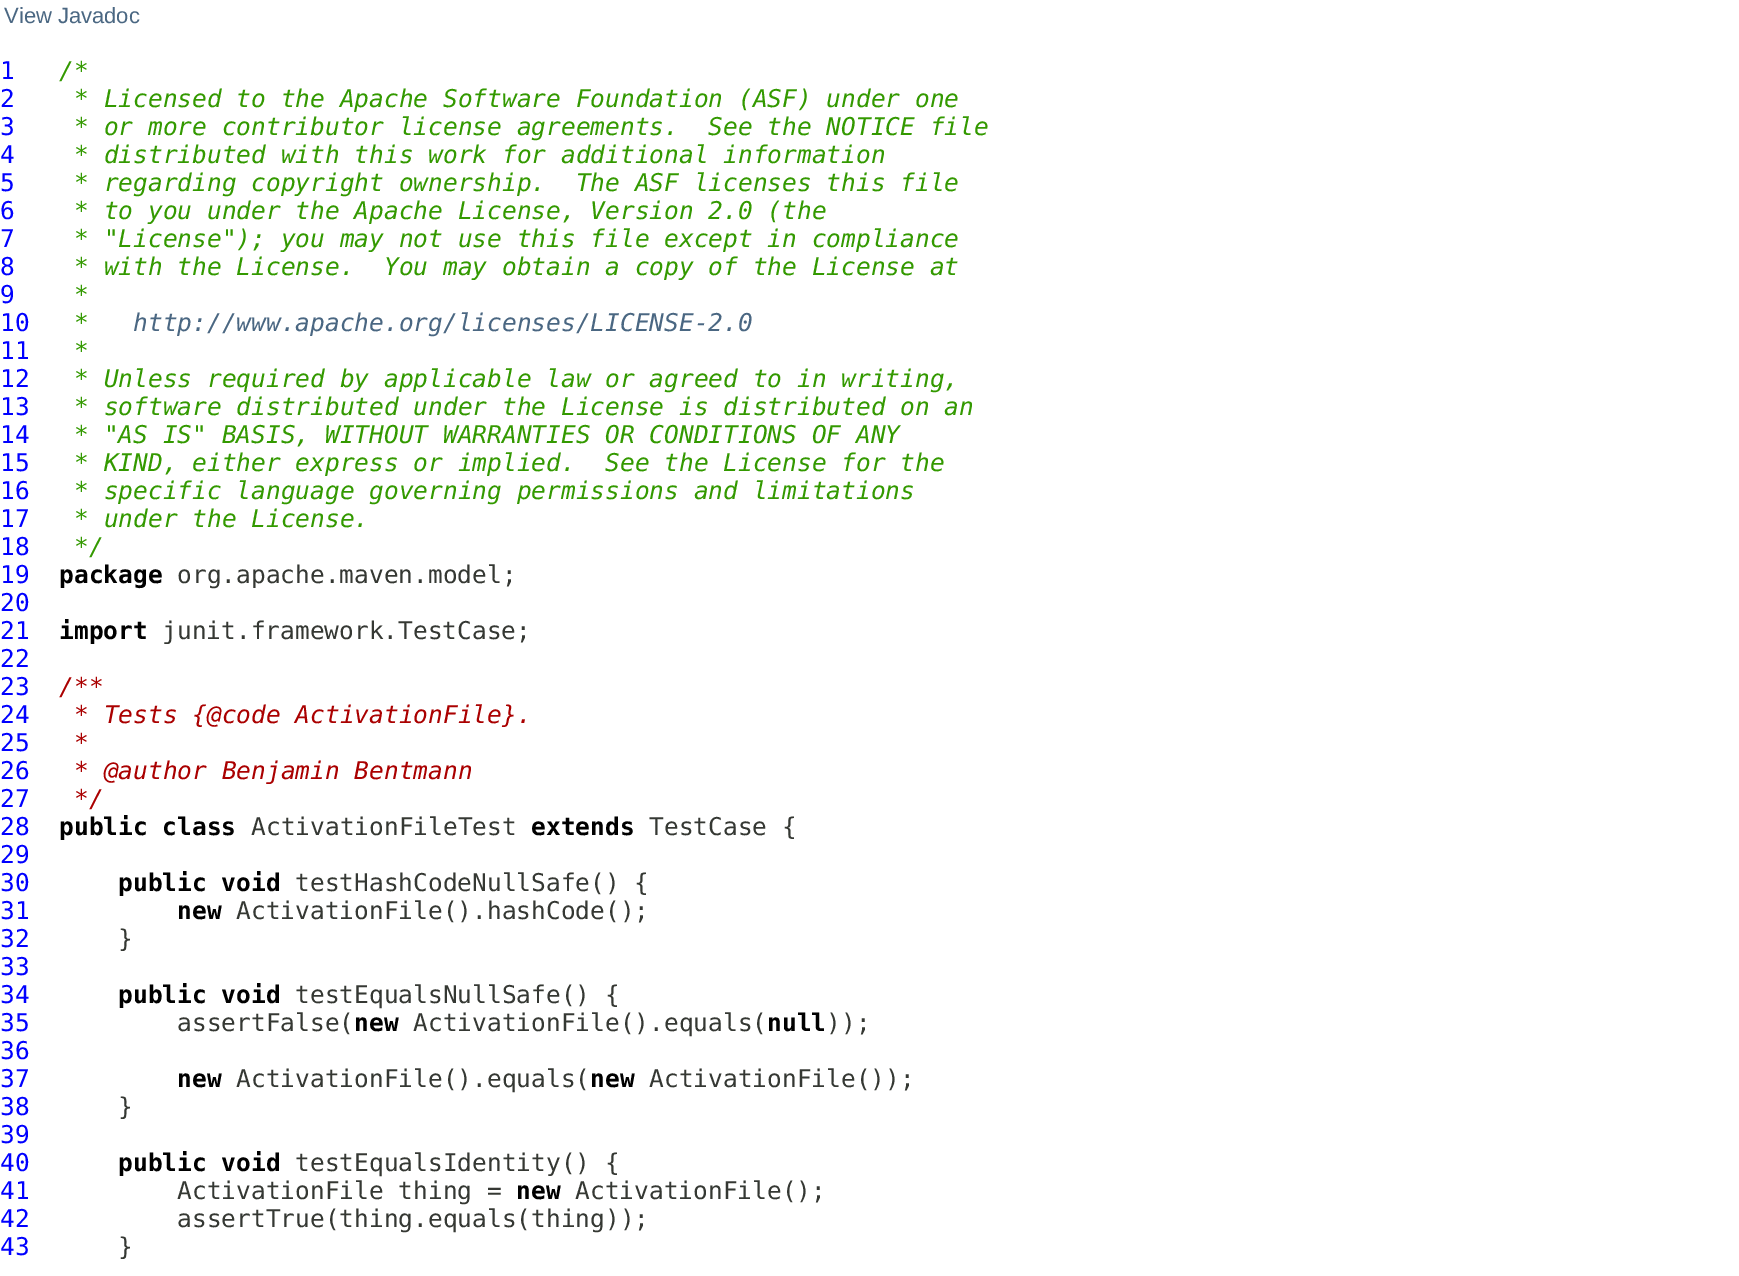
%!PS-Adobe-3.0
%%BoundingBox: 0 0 1739 1276
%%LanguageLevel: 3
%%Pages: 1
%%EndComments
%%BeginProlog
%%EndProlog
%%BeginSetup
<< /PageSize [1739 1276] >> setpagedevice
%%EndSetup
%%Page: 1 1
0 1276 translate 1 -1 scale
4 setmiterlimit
1 setgray
0 0 1739 1276 rectfill
/LiberationSans-Regular [22 0 0 -22 0 0] selectfont
0.29 0.404 0.51 setrgbcolor
4 23 moveto (View Javadoc) show
/DejaVuSansMono-Regular [24.5 0 0 -24.5 0 0] selectfont
0 0 1 setrgbcolor
0 79 moveto (1) show
/DejaVuSansMono-Italic [24.5 0 0 -24.5 0 0] selectfont
0.2 0.6 0 setrgbcolor
59 79 moveto (/*) show
/DejaVuSansMono-Regular [24.5 0 0 -24.5 0 0] selectfont
0 0 1 setrgbcolor
0 107 moveto (2) show
/DejaVuSansMono-Italic [24.5 0 0 -24.5 0 0] selectfont
0.2 0.6 0 setrgbcolor
74 107 moveto (* Licensed to the Apache Software Foundation \(ASF\) under one) show
/DejaVuSansMono-Regular [24.5 0 0 -24.5 0 0] selectfont
0 0 1 setrgbcolor
0 135 moveto (3) show
/DejaVuSansMono-Italic [24.5 0 0 -24.5 0 0] selectfont
0.2 0.6 0 setrgbcolor
74 135 moveto (* or more contributor license agreements.  See the NOTICE file) show
/DejaVuSansMono-Regular [24.5 0 0 -24.5 0 0] selectfont
0 0 1 setrgbcolor
0 163 moveto (4) show
/DejaVuSansMono-Italic [24.5 0 0 -24.5 0 0] selectfont
0.2 0.6 0 setrgbcolor
74 163 moveto (* distributed with this work for additional information) show
/DejaVuSansMono-Regular [24.5 0 0 -24.5 0 0] selectfont
0 0 1 setrgbcolor
0 191 moveto (5) show
/DejaVuSansMono-Italic [24.5 0 0 -24.5 0 0] selectfont
0.2 0.6 0 setrgbcolor
74 191 moveto (* regarding copyright ownership.  The ASF licenses this file) show
/DejaVuSansMono-Regular [24.5 0 0 -24.5 0 0] selectfont
0 0 1 setrgbcolor
0 219 moveto (6) show
/DejaVuSansMono-Italic [24.5 0 0 -24.5 0 0] selectfont
0.2 0.6 0 setrgbcolor
74 219 moveto (* to you under the Apache License, Version 2.0 \(the) show
/DejaVuSansMono-Regular [24.5 0 0 -24.5 0 0] selectfont
0 0 1 setrgbcolor
0 247 moveto (7) show
/DejaVuSansMono-Italic [24.5 0 0 -24.5 0 0] selectfont
0.2 0.6 0 setrgbcolor
74 247 moveto (* "License"\); you may not use this file except in compliance) show
/DejaVuSansMono-Regular [24.5 0 0 -24.5 0 0] selectfont
0 0 1 setrgbcolor
0 275 moveto (8) show
/DejaVuSansMono-Italic [24.5 0 0 -24.5 0 0] selectfont
0.2 0.6 0 setrgbcolor
74 275 moveto (* with the License.  You may obtain a copy of the License at) show
/DejaVuSansMono-Regular [24.5 0 0 -24.5 0 0] selectfont
0 0 1 setrgbcolor
0 303 moveto (9) show
/DejaVuSansMono-Italic [24.5 0 0 -24.5 0 0] selectfont
0.2 0.6 0 setrgbcolor
74 303 moveto (*) show
/DejaVuSansMono-Regular [24.5 0 0 -24.5 0 0] selectfont
0 0 1 setrgbcolor
0 331 moveto (10) show
/DejaVuSansMono-Italic [24.5 0 0 -24.5 0 0] selectfont
0.2 0.6 0 setrgbcolor
74 331 moveto (*) show
0.29 0.404 0.51 setrgbcolor
133 331 moveto (http://www.apache.org/licenses/LICENSE-2.0) show
/DejaVuSansMono-Regular [24.5 0 0 -24.5 0 0] selectfont
0 0 1 setrgbcolor
0 359 moveto (11) show
/DejaVuSansMono-Italic [24.5 0 0 -24.5 0 0] selectfont
0.2 0.6 0 setrgbcolor
74 359 moveto (*) show
/DejaVuSansMono-Regular [24.5 0 0 -24.5 0 0] selectfont
0 0 1 setrgbcolor
0 387 moveto (12) show
/DejaVuSansMono-Italic [24.5 0 0 -24.5 0 0] selectfont
0.2 0.6 0 setrgbcolor
74 387 moveto (* Unless required by applicable law or agreed to in writing,) show
/DejaVuSansMono-Regular [24.5 0 0 -24.5 0 0] selectfont
0 0 1 setrgbcolor
0 415 moveto (13) show
/DejaVuSansMono-Italic [24.5 0 0 -24.5 0 0] selectfont
0.2 0.6 0 setrgbcolor
74 415 moveto (* software distributed under the License is distributed on an) show
/DejaVuSansMono-Regular [24.5 0 0 -24.5 0 0] selectfont
0 0 1 setrgbcolor
0 443 moveto (14) show
/DejaVuSansMono-Italic [24.5 0 0 -24.5 0 0] selectfont
0.2 0.6 0 setrgbcolor
74 443 moveto (* "AS IS" BASIS, WITHOUT WARRANTIES OR CONDITIONS OF ANY) show
/DejaVuSansMono-Regular [24.5 0 0 -24.5 0 0] selectfont
0 0 1 setrgbcolor
0 471 moveto (15) show
/DejaVuSansMono-Italic [24.5 0 0 -24.5 0 0] selectfont
0.2 0.6 0 setrgbcolor
74 471 moveto (* KIND, either express or implied.  See the License for the) show
/DejaVuSansMono-Regular [24.5 0 0 -24.5 0 0] selectfont
0 0 1 setrgbcolor
0 499 moveto (16) show
/DejaVuSansMono-Italic [24.5 0 0 -24.5 0 0] selectfont
0.2 0.6 0 setrgbcolor
74 499 moveto (* specific language governing permissions and limitations) show
/DejaVuSansMono-Regular [24.5 0 0 -24.5 0 0] selectfont
0 0 1 setrgbcolor
0 527 moveto (17) show
/DejaVuSansMono-Italic [24.5 0 0 -24.5 0 0] selectfont
0.2 0.6 0 setrgbcolor
74 527 moveto (* under the License.) show
/DejaVuSansMono-Regular [24.5 0 0 -24.5 0 0] selectfont
0 0 1 setrgbcolor
0 555 moveto (18) show
/DejaVuSansMono-Italic [24.5 0 0 -24.5 0 0] selectfont
0.2 0.6 0 setrgbcolor
74 555 moveto (*/) show
/DejaVuSansMono-Regular [24.5 0 0 -24.5 0 0] selectfont
0 0 1 setrgbcolor
0 583 moveto (19) show
/DejaVuSansMono-Bold [24.5 0 0 -24.5 0 0] selectfont
0 setgray
59 583 moveto (package) show
/DejaVuSansMono-Regular [24.5 0 0 -24.5 0 0] selectfont
0.208 0.22 0.2 setrgbcolor
177 583 moveto (org.apache.maven.model;) show
0 0 1 setrgbcolor
0 611 moveto (20) show
0 639 moveto (21) show
/DejaVuSansMono-Bold [24.5 0 0 -24.5 0 0] selectfont
0 setgray
59 639 moveto (import) show
/DejaVuSansMono-Regular [24.5 0 0 -24.5 0 0] selectfont
0.208 0.22 0.2 setrgbcolor
162 639 moveto (junit.framework.TestCase;) show
0 0 1 setrgbcolor
0 667 moveto (22) show
0 695 moveto (23) show
/DejaVuSansMono-Italic [24.5 0 0 -24.5 0 0] selectfont
0.667 0 0 setrgbcolor
59 695 moveto (/**) show
/DejaVuSansMono-Regular [24.5 0 0 -24.5 0 0] selectfont
0 0 1 setrgbcolor
0 723 moveto (24) show
/DejaVuSansMono-Italic [24.5 0 0 -24.5 0 0] selectfont
0.667 0 0 setrgbcolor
74 723 moveto (* Tests {@code ActivationFile}.) show
/DejaVuSansMono-Regular [24.5 0 0 -24.5 0 0] selectfont
0 0 1 setrgbcolor
0 751 moveto (25) show
/DejaVuSansMono-Italic [24.5 0 0 -24.5 0 0] selectfont
0.667 0 0 setrgbcolor
74 751 moveto (*) show
/DejaVuSansMono-Regular [24.5 0 0 -24.5 0 0] selectfont
0 0 1 setrgbcolor
0 779 moveto (26) show
/DejaVuSansMono-Italic [24.5 0 0 -24.5 0 0] selectfont
0.667 0 0 setrgbcolor
74 779 moveto (* @author Benjamin Bentmann) show
/DejaVuSansMono-Regular [24.5 0 0 -24.5 0 0] selectfont
0 0 1 setrgbcolor
0 807 moveto (27) show
/DejaVuSansMono-Italic [24.5 0 0 -24.5 0 0] selectfont
0.667 0 0 setrgbcolor
74 807 moveto (*/) show
/DejaVuSansMono-Regular [24.5 0 0 -24.5 0 0] selectfont
0 0 1 setrgbcolor
0 835 moveto (28) show
/DejaVuSansMono-Bold [24.5 0 0 -24.5 0 0] selectfont
0 setgray
59 835 moveto (public class) show
/DejaVuSansMono-Regular [24.5 0 0 -24.5 0 0] selectfont
0.208 0.22 0.2 setrgbcolor
251 835 moveto (ActivationFileTest) show
/DejaVuSansMono-Bold [24.5 0 0 -24.5 0 0] selectfont
0 setgray
531 835 moveto (extends) show
/DejaVuSansMono-Regular [24.5 0 0 -24.5 0 0] selectfont
0.208 0.22 0.2 setrgbcolor
649 835 moveto (TestCase {) show
0 0 1 setrgbcolor
0 863 moveto (29) show
0 891 moveto (30) show
/DejaVuSansMono-Bold [24.5 0 0 -24.5 0 0] selectfont
0 setgray
118 891 moveto (public void) show
/DejaVuSansMono-Regular [24.5 0 0 -24.5 0 0] selectfont
0.208 0.22 0.2 setrgbcolor
295 891 moveto (testHashCodeNullSafe\(\) {) show
0 0 1 setrgbcolor
0 919 moveto (31) show
/DejaVuSansMono-Bold [24.5 0 0 -24.5 0 0] selectfont
0 setgray
177 919 moveto (new) show
/DejaVuSansMono-Regular [24.5 0 0 -24.5 0 0] selectfont
0.208 0.22 0.2 setrgbcolor
236 919 moveto (ActivationFile\(\).hashCode\(\);) show
0 0 1 setrgbcolor
0 947 moveto (32) show
0.208 0.22 0.2 setrgbcolor
118 947 moveto (}) show
0 0 1 setrgbcolor
0 975 moveto (33) show
0 1003 moveto (34) show
/DejaVuSansMono-Bold [24.5 0 0 -24.5 0 0] selectfont
0 setgray
118 1003 moveto (public void) show
/DejaVuSansMono-Regular [24.5 0 0 -24.5 0 0] selectfont
0.208 0.22 0.2 setrgbcolor
295 1003 moveto (testEqualsNullSafe\(\) {) show
0 0 1 setrgbcolor
0 1031 moveto (35) show
0.208 0.22 0.2 setrgbcolor
177 1031 moveto (assertFalse\() show
/DejaVuSansMono-Bold [24.5 0 0 -24.5 0 0] selectfont
0 setgray
354 1031 moveto (new) show
/DejaVuSansMono-Regular [24.5 0 0 -24.5 0 0] selectfont
0.208 0.22 0.2 setrgbcolor
413 1031 moveto (ActivationFile\(\).equals\() show
/DejaVuSansMono-Bold [24.5 0 0 -24.5 0 0] selectfont
0 setgray
767 1031 moveto (null) show
/DejaVuSansMono-Regular [24.5 0 0 -24.5 0 0] selectfont
0.208 0.22 0.2 setrgbcolor
826 1031 moveto (\)\);) show
0 0 1 setrgbcolor
0 1059 moveto (36) show
0 1087 moveto (37) show
/DejaVuSansMono-Bold [24.5 0 0 -24.5 0 0] selectfont
0 setgray
177 1087 moveto (new) show
/DejaVuSansMono-Regular [24.5 0 0 -24.5 0 0] selectfont
0.208 0.22 0.2 setrgbcolor
236 1087 moveto (ActivationFile\(\).equals\() show
/DejaVuSansMono-Bold [24.5 0 0 -24.5 0 0] selectfont
0 setgray
590 1087 moveto (new) show
/DejaVuSansMono-Regular [24.5 0 0 -24.5 0 0] selectfont
0.208 0.22 0.2 setrgbcolor
649 1087 moveto (ActivationFile\(\)\);) show
0 0 1 setrgbcolor
0 1115 moveto (38) show
0.208 0.22 0.2 setrgbcolor
118 1115 moveto (}) show
0 0 1 setrgbcolor
0 1143 moveto (39) show
0 1171 moveto (40) show
/DejaVuSansMono-Bold [24.5 0 0 -24.5 0 0] selectfont
0 setgray
118 1171 moveto (public void) show
/DejaVuSansMono-Regular [24.5 0 0 -24.5 0 0] selectfont
0.208 0.22 0.2 setrgbcolor
295 1171 moveto (testEqualsIdentity\(\) {) show
0 0 1 setrgbcolor
0 1199 moveto (41) show
0.208 0.22 0.2 setrgbcolor
177 1199 moveto (ActivationFile thing =) show
/DejaVuSansMono-Bold [24.5 0 0 -24.5 0 0] selectfont
0 setgray
516 1199 moveto (new) show
/DejaVuSansMono-Regular [24.5 0 0 -24.5 0 0] selectfont
0.208 0.22 0.2 setrgbcolor
575 1199 moveto (ActivationFile\(\);) show
0 0 1 setrgbcolor
0 1227 moveto (42) show
0.208 0.22 0.2 setrgbcolor
177 1227 moveto (assertTrue\(thing.equals\(thing\)\);) show
0 0 1 setrgbcolor
0 1255 moveto (43) show
0.208 0.22 0.2 setrgbcolor
118 1255 moveto (}) show
showpage
%%EOF
